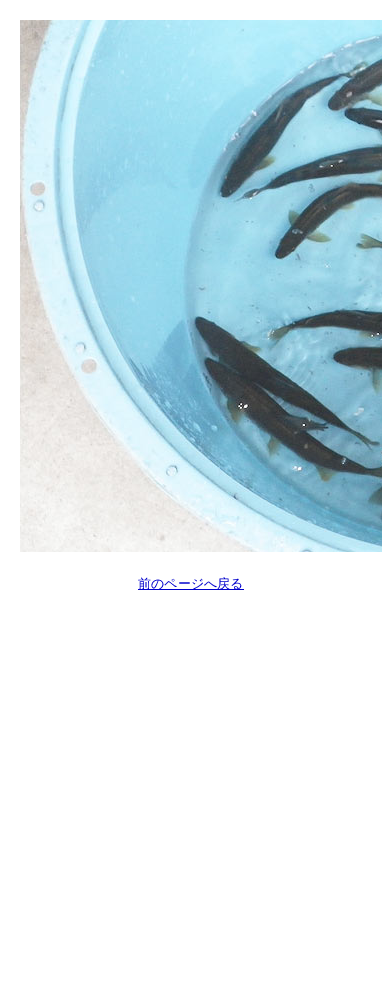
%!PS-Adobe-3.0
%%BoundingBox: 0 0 382 995
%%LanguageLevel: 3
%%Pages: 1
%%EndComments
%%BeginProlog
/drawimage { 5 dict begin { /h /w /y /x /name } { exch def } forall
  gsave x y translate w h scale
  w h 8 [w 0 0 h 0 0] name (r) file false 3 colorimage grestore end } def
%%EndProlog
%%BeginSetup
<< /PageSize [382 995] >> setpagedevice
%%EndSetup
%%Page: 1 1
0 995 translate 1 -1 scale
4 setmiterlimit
1 setgray
0 0 382 995 rectfill
(images/1.raw) 20 20 362 532 drawimage
0 0 0.8 setrgbcolor
138 589 106 1 rectfill
/WenQuanYiZenHei-Medium [13 0 0 -13 0 0] selectfont
138 588 moveto (前のページへ戻る) show
showpage
%%EOF
